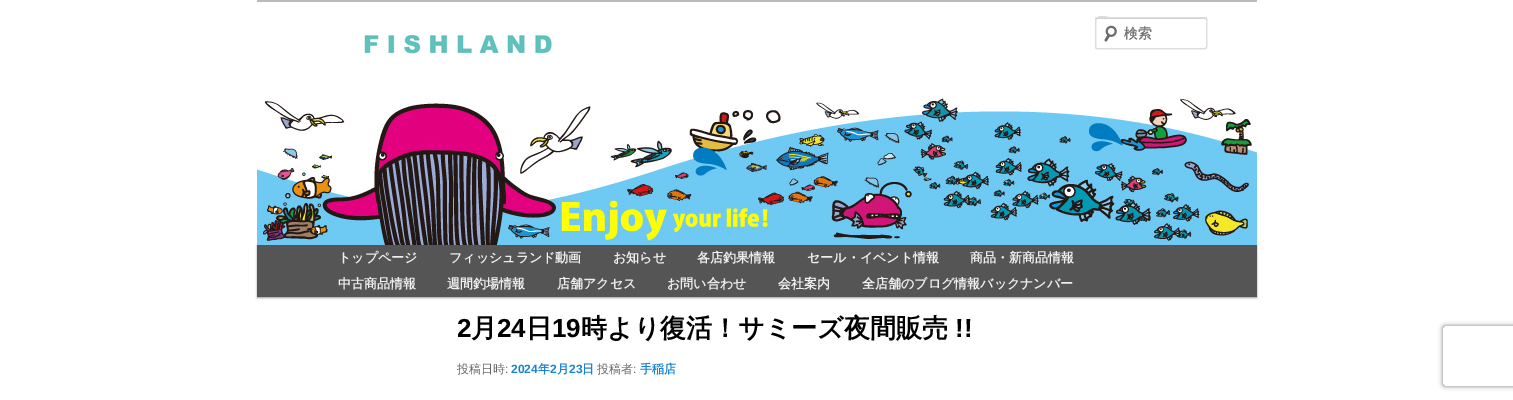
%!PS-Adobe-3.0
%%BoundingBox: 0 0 1513 400
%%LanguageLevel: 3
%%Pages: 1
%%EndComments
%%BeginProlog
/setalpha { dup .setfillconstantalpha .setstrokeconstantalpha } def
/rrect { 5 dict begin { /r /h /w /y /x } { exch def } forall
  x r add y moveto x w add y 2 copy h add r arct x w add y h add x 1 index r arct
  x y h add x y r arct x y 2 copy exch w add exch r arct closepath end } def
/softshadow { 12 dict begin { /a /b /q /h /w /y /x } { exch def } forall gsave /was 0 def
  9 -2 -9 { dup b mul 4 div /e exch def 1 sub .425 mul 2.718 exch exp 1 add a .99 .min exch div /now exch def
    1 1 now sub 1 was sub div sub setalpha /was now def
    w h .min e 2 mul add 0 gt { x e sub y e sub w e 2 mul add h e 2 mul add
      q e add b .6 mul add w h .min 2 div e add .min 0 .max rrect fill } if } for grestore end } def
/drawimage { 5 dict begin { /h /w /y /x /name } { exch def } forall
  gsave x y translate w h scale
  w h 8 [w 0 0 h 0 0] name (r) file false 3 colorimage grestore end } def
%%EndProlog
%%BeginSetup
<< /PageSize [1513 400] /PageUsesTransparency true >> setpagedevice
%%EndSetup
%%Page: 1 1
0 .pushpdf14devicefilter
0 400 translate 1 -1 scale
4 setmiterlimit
1 setgray
0 0 1513 400 rectfill
0.733 setgray
257 0 1000 2 rectfill
0 setgray
257 246 1000 52 0 1 0.4 softshadow
0.333 setgray
257 245 1000 52 rectfill
(images/3.raw) 1104 25 13 17 drawimage
0.902 setgray
newpath 1097 19 moveto 1206 19 lineto 1206 20 lineto 1205 18 lineto 1115 18 lineto 1111 18 1096 13 1096 20 curveto 1096 19 1096 19 1097 19 curveto closepath fill
0.867 setgray
1095.5 17.5 111 31 1.5 rrect stroke
(images/1.raw) 1104 25 13 17 drawimage
0.1 setalpha
0 setgray
newpath 1097 19 moveto 1206 19 lineto 1206 20 lineto 1205 18 lineto 1115 18 lineto 1111 18 1096 13 1096 20 curveto 1096 19 1096 19 1097 19 curveto closepath fill
1 setalpha
0.867 setgray
1095.5 17.5 111 31 1.5 rrect stroke
(images/2.raw) 364 34 188 20 drawimage
(images/4.raw) 257 95 1000 150 drawimage
gsave
newpath 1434 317 moveto 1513 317 lineto 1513 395 lineto 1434 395 lineto closepath 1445 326 moveto 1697 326 lineto 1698 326 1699 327 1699 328 curveto 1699 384 lineto 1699 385 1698 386 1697 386 curveto 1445 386 lineto 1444 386 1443 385 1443 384 curveto 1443 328 lineto 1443 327 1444 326 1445 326 curveto closepath eoclip newpath
0.502 setgray
1443 326 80 60 2 2.5 1 softshadow
grestore
/WenQuanYiZenHei-Bold [13 0 0 -13 0 0] selectfont
0.933 setgray
338 262 moveto (トップページ) show
449 262 moveto (フィッシュランド動画) show
613 262 moveto (お知らせ) show
697 262 moveto (各店釣果情報) show
807 262 moveto (セール・イベント情報) show
970 262 moveto (商品・新商品情報) show
338 288 moveto (中古商品情報) show
447 288 moveto (週間釣場情報) show
557 288 moveto (店舗アクセス) show
667 288 moveto (お問い合わせ) show
778 288 moveto (会社案内) show
862 288 moveto (全店舗のブログ情報バックナンバー) show
/WenQuanYiZenHei-Medium [14 0 0 -14 0 0] selectfont
0.459 setgray
1124 38 moveto (検索) show
1124 38 moveto (検索) show
/LiberationSans-Bold [26 0 0 -26 0 0] selectfont
0 setgray
457 337 moveto (2) show
/WenQuanYiZenHei-Bold [26 0 0 -26 0 0] selectfont
471 337 moveto (月) show
/LiberationSans-Bold [26 0 0 -26 0 0] selectfont
497 337 moveto (24) show
/WenQuanYiZenHei-Bold [26 0 0 -26 0 0] selectfont
526 337 moveto (日) show
/LiberationSans-Bold [26 0 0 -26 0 0] selectfont
552 337 moveto (19) show
/WenQuanYiZenHei-Bold [26 0 0 -26 0 0] selectfont
581 337 moveto (時より復活！サミーズ夜間販売) show
/LiberationSans-Bold [26 0 0 -26 0 0] selectfont
955 337 moveto (!!) show
/WenQuanYiZenHei-Medium [12 0 0 -12 0 0] selectfont
0.4 setgray
457 373 moveto (投稿日時) show
/LiberationSans-Regular [12 0 0 -12 0 0] selectfont
505 373 moveto (:) show
/LiberationSans-Bold [12 0 0 -12 0 0] selectfont
0.098 0.51 0.82 setrgbcolor
511 373 moveto (2024) show
/WenQuanYiZenHei-Bold [12 0 0 -12 0 0] selectfont
538 373 moveto (年) show
/LiberationSans-Bold [12 0 0 -12 0 0] selectfont
550 373 moveto (2) show
/WenQuanYiZenHei-Bold [12 0 0 -12 0 0] selectfont
557 373 moveto (月) show
/LiberationSans-Bold [12 0 0 -12 0 0] selectfont
569 373 moveto (23) show
/WenQuanYiZenHei-Bold [12 0 0 -12 0 0] selectfont
582 373 moveto (日) show
/WenQuanYiZenHei-Medium [12 0 0 -12 0 0] selectfont
0.4 setgray
597 373 moveto (投稿者) show
/LiberationSans-Regular [12 0 0 -12 0 0] selectfont
633 373 moveto (:) show
/WenQuanYiZenHei-Bold [12 0 0 -12 0 0] selectfont
0.098 0.51 0.82 setrgbcolor
640 373 moveto (手稲店) show
.poppdf14devicefilter showpage
%%EOF
